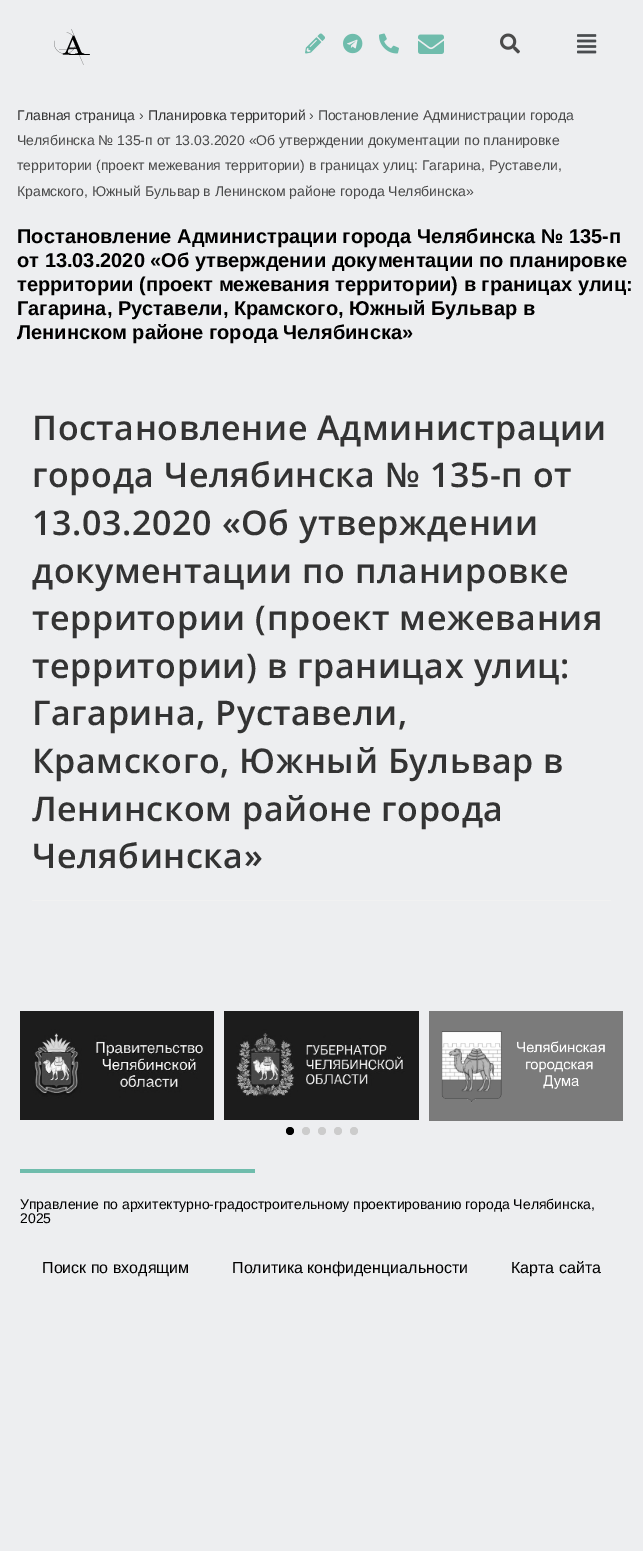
%!PS-Adobe-3.0
%%BoundingBox: 0 0 643 1551
%%LanguageLevel: 3
%%Pages: 1
%%EndComments
%%BeginProlog
/drawimage { 5 dict begin { /h /w /y /x /name } { exch def } forall
  gsave x y translate w h scale
  w h 8 [w 0 0 h 0 0] name (r) file false 3 colorimage grestore end } def
%%EndProlog
%%BeginSetup
<< /PageSize [643 1551] >> setpagedevice
%%EndSetup
%%Page: 1 1
0 1551 translate 1 -1 scale
4 setmiterlimit
0.929 0.933 0.941 setrgbcolor
0 0 643 1551 rectfill
(images/1.raw) 54 29 36 36 drawimage
(images/2.raw) 305 33 20 21 drawimage
(images/3.raw) 343 33 20 21 drawimage
(images/4.raw) 379 33 20 21 drawimage
(images/5.raw) 418 34 26 20 drawimage
(images/6.raw) 500 33 20 21 drawimage
(images/7.raw) 577 34 20 20 drawimage
0.945 setgray
32 900 579 1 rectfill
(images/8.raw) 20 1011 194 109 drawimage
(images/9.raw) 224 1011 195 109 drawimage
(images/10.raw) 429 1011 194 110 drawimage
0 setgray
newpath 290 1131 4 0 360 arc closepath fill
0.8 setgray
newpath 306 1131 4 0 360 arc closepath fill
newpath 322 1131 4 0 360 arc closepath fill
newpath 338 1131 4 0 360 arc closepath fill
newpath 354 1131 4 0 360 arc closepath fill
0.435 0.737 0.675 setrgbcolor
20 1169 235 4 rectfill
/LiberationSans-Regular [14 0 0 -14 0 0] selectfont
0.2 setgray
17 120 moveto (Главная страница) show
0.29 setgray
139 120 moveto (›) show
0.2 setgray
148 120 moveto (Планировка территорий) show
0.29 setgray
309 120 moveto (› Постановление Администрации города) show
17 145 moveto (Челябинска № 135-п от 13.03.2020 «Об утверждении документации по планировке) show
17 170 moveto (территории \(проект межевания территории\) в границах улиц: Гагарина, Руставели,) show
17 196 moveto (Крамского, Южный Бульвар в Ленинском районе города Челябинска») show
/LiberationSans-Bold [20 0 0 -20 0 0] selectfont
0 setgray
17 243 moveto (Постановление Администрации города Челябинска № 135-п) show
17 267 moveto (от 13.03.2020 «Об утверждении документации по планировке) show
17 291 moveto (территории \(проект межевания территории\) в границах улиц:) show
17 315 moveto (Гагарина, Руставели, Крамского, Южный Бульвар в) show
17 339 moveto (Ленинском районе города Челябинска») show
/OpenSans-SemiBold [34 0 0 -34 0 0] selectfont
0.2 setgray
32 440 moveto 0.6 0 (Постановление Администрации) ashow
32 487 moveto 0.6 0 (города Челябинска № 135-п от) ashow
32 535 moveto 0.6 0 (13.03.2020 «Об утверждении) ashow
32 583 moveto 0.6 0 (документации по планировке) ashow
32 630 moveto 0.6 0 (территории \(проект межевания) ashow
32 678 moveto 0.6 0 (территории\) в границах улиц:) ashow
32 725 moveto 0.6 0 (Гагарина, Руставели,) ashow
32 773 moveto 0.6 0 (Крамского, Южный Бульвар в) ashow
32 821 moveto 0.6 0 (Ленинском районе города) ashow
32 868 moveto 0.6 0 (Челябинска») ashow
/LiberationSans-Regular [14 0 0 -14 0 0] selectfont
0 setgray
20 1209 moveto (Управление по архитектурно-градостроительному проектированию города Челябинска,) show
20 1223 moveto (2025) show
/LiberationSans-Regular [16 0 0 -16 0 0] selectfont
42 1273 moveto (Поиск по входящим) show
232 1273 moveto (Политика конфиденциальности) show
511 1273 moveto (Карта сайта) show
showpage
%%EOF
